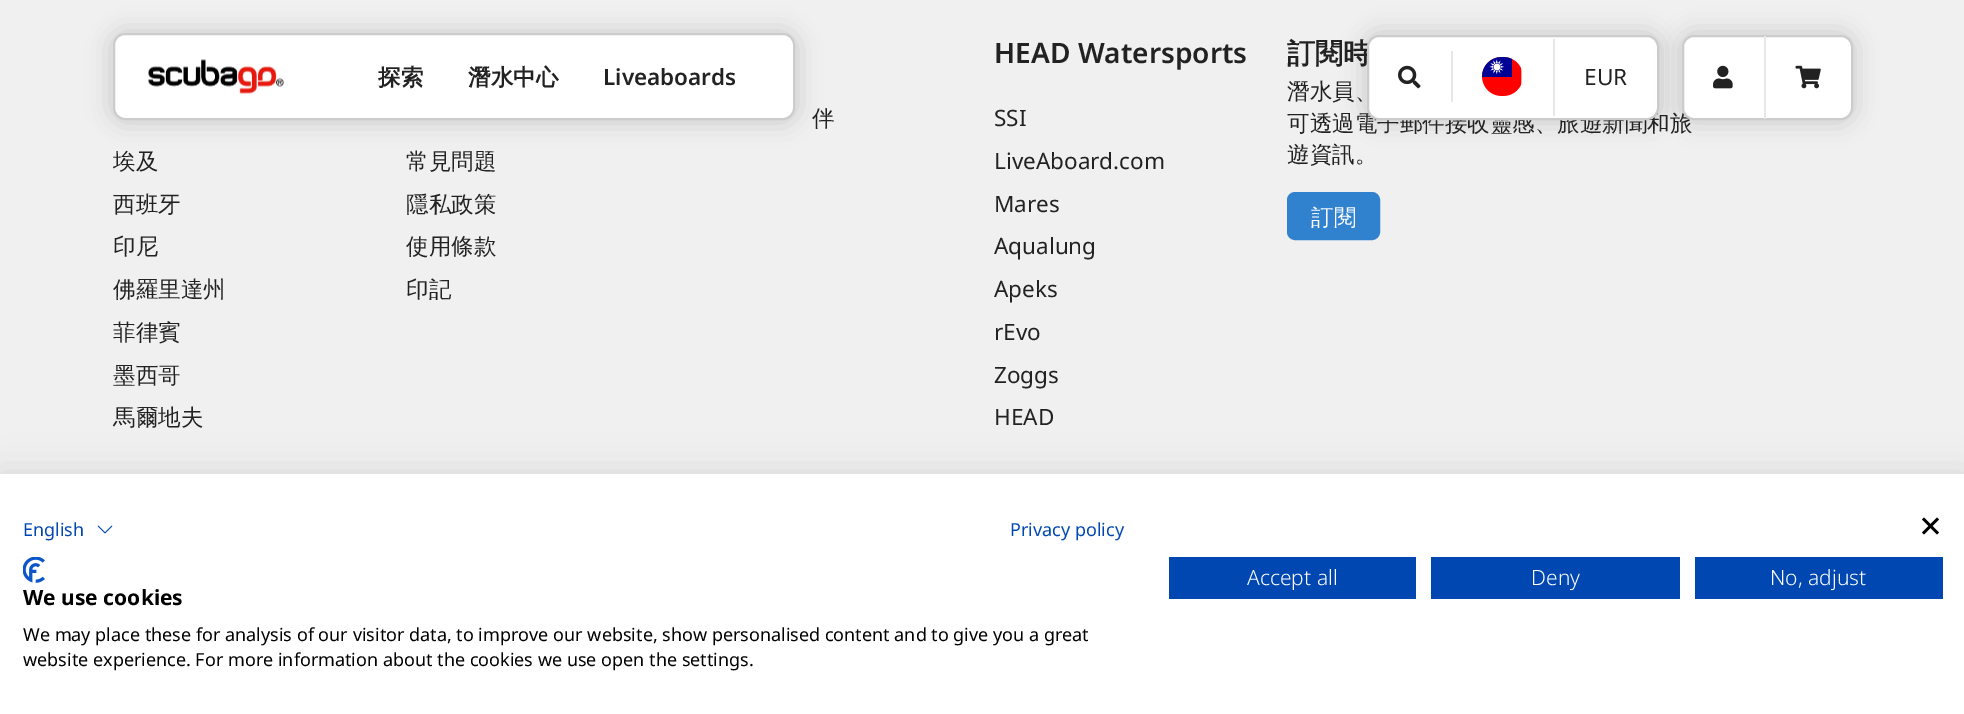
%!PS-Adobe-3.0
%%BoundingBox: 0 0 1964 714
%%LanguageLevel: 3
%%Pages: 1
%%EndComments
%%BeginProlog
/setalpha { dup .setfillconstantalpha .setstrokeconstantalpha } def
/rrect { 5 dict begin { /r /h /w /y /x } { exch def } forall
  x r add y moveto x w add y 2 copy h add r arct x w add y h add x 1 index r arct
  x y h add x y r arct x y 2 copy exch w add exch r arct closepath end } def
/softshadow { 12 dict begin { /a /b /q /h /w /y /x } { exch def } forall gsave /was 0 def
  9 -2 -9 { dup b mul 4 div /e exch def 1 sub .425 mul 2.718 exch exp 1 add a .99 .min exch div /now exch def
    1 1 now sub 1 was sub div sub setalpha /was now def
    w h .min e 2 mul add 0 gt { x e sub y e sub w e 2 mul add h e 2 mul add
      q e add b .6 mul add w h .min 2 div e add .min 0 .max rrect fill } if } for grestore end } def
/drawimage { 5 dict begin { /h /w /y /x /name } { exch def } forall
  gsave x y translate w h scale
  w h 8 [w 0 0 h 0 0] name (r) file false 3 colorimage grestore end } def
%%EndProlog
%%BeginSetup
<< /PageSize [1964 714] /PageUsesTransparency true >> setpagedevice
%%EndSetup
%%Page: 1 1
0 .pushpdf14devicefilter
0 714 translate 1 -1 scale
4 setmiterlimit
0.941 setgray
0 0 1964 714 rectfill
0.192 0.51 0.808 setrgbcolor
1288 193 91 46 7 rrect gsave fill grestore
2 setlinewidth
stroke
0 setgray
111 32 686 90 14 12 0.15 softshadow
1 setgray
114 34 680 85 11 rrect gsave fill grestore
0.8 setgray
stroke
(images/1.raw) 148 59 136 35 drawimage
0 setgray
1365 33 296 89 14 12 0.15 softshadow
0 474 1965 240 0 18 0.1 softshadow
1 setgray
0 474 1964 240 rectfill
(images/6.raw) 97 525 16 9 drawimage
0 setgray
newpath 1937 517.5 moveto 1939 519.5 lineto 1924 534.5 lineto 1922 532.5 lineto closepath fill
newpath 1922 519.5 moveto 1924 517.5 lineto 1939 532.5 lineto 1937 534.5 lineto closepath fill
0 0.278 0.698 setrgbcolor
1169 557 247 42 rectfill
1431 557 249 42 rectfill
1695 557 248 42 rectfill
(images/7.raw) 23 557 22 26 drawimage
/WenQuanYiZenHei-Medium [22.5 0 0 -22.5 0 0] selectfont
0.133 setgray
812 126 moveto (伴) show
/NotoSans-SemiBold [28.1 0 0 -28.1 0 0] selectfont
994 63 moveto (HEAD Watersports) show
/NotoSans-Regular [22.5 0 0 -22.5 0 0] selectfont
994 126 moveto (SSI) show
994 169 moveto (LiveAboard.com) show
994 212 moveto (Mares) show
994 254 moveto (Aqualung) show
994 297 moveto (Apeks) show
994 340 moveto (rEvo) show
994 383 moveto (Zoggs) show
994 425 moveto (HEAD) show
/WenQuanYiZenHei-Bold [28.1 0 0 -28.1 0 0] selectfont
1287 63 moveto (訂閱時) show
/WenQuanYiZenHei-Medium [22.5 0 0 -22.5 0 0] selectfont
1287 99 moveto (潛水員、) show
1287 131 moveto (可透過電子郵件接收靈感、旅遊新聞和旅) show
1287 162 moveto (遊資訊。) show
1 setgray
1311 225 moveto (訂閱) show
0.133 setgray
113 169 moveto (埃及) show
113 212 moveto (西班牙) show
113 254 moveto (印尼) show
113 297 moveto (佛羅里達州) show
113 340 moveto (菲律賓) show
113 383 moveto (墨西哥) show
113 425 moveto (馬爾地夫) show
406 169 moveto (常見問題) show
406 212 moveto (隱私政策) show
406 254 moveto (使用條款) show
406 297 moveto (印記) show
/WenQuanYiZenHei-Bold [22.5 0 0 -22.5 0 0] selectfont
378 85 moveto (探索) show
468 85 moveto (潛水中心) show
/NotoSans-SemiBold [22.5 0 0 -22.5 0 0] selectfont
603 85 moveto (Liveaboards) show
1 setgray
1368 36 290 83 11 rrect gsave fill grestore
0.8 setgray
stroke
(images/2.raw) 1398 65 23 24 drawimage
0.898 0.906 0.922 setrgbcolor
1451 51 2 51 rectfill
(images/3.raw) 1482 57 40 39 drawimage
1553 39 2 77 rectfill
/NotoSans-Regular [22.5 0 0 -22.5 0 0] selectfont
0.133 setgray
1584 85 moveto (EUR) show
0 setgray
1680 33 174 89 14 12 0.15 softshadow
1 setgray
1683 36 169 83 11 rrect gsave fill grestore
0.8 setgray
stroke
(images/4.raw) 1713 65 20 24 drawimage
0.898 0.906 0.922 setrgbcolor
1764 36 2 83 rectfill
(images/5.raw) 1795 65 26 24 drawimage
/NotoSans-Regular [18 0 0 -18 0 0] selectfont
0 0.278 0.698 setrgbcolor
23 536 moveto (English) show
1010 536 moveto (Privacy policy) show
/NotoSans-Light [21 0 0 -21 0 0] selectfont
1 setgray
1247 585 moveto (Accept all) show
1531 585 moveto (Deny) show
1770 585 moveto (No, adjust) show
/NotoSans-Bold [21 0 0 -21 0 0] selectfont
0 setgray
23 605 moveto (We use cookies) show
/NotoSans-Regular [18 0 0 -18 0 0] selectfont
23 641 moveto (We may place these for analysis of our visitor data, to improve our website, show personalised content and to give you a great) show
23 666 moveto (website experience. For more information about the cookies we use open the settings.) show
.poppdf14devicefilter showpage
%%EOF
